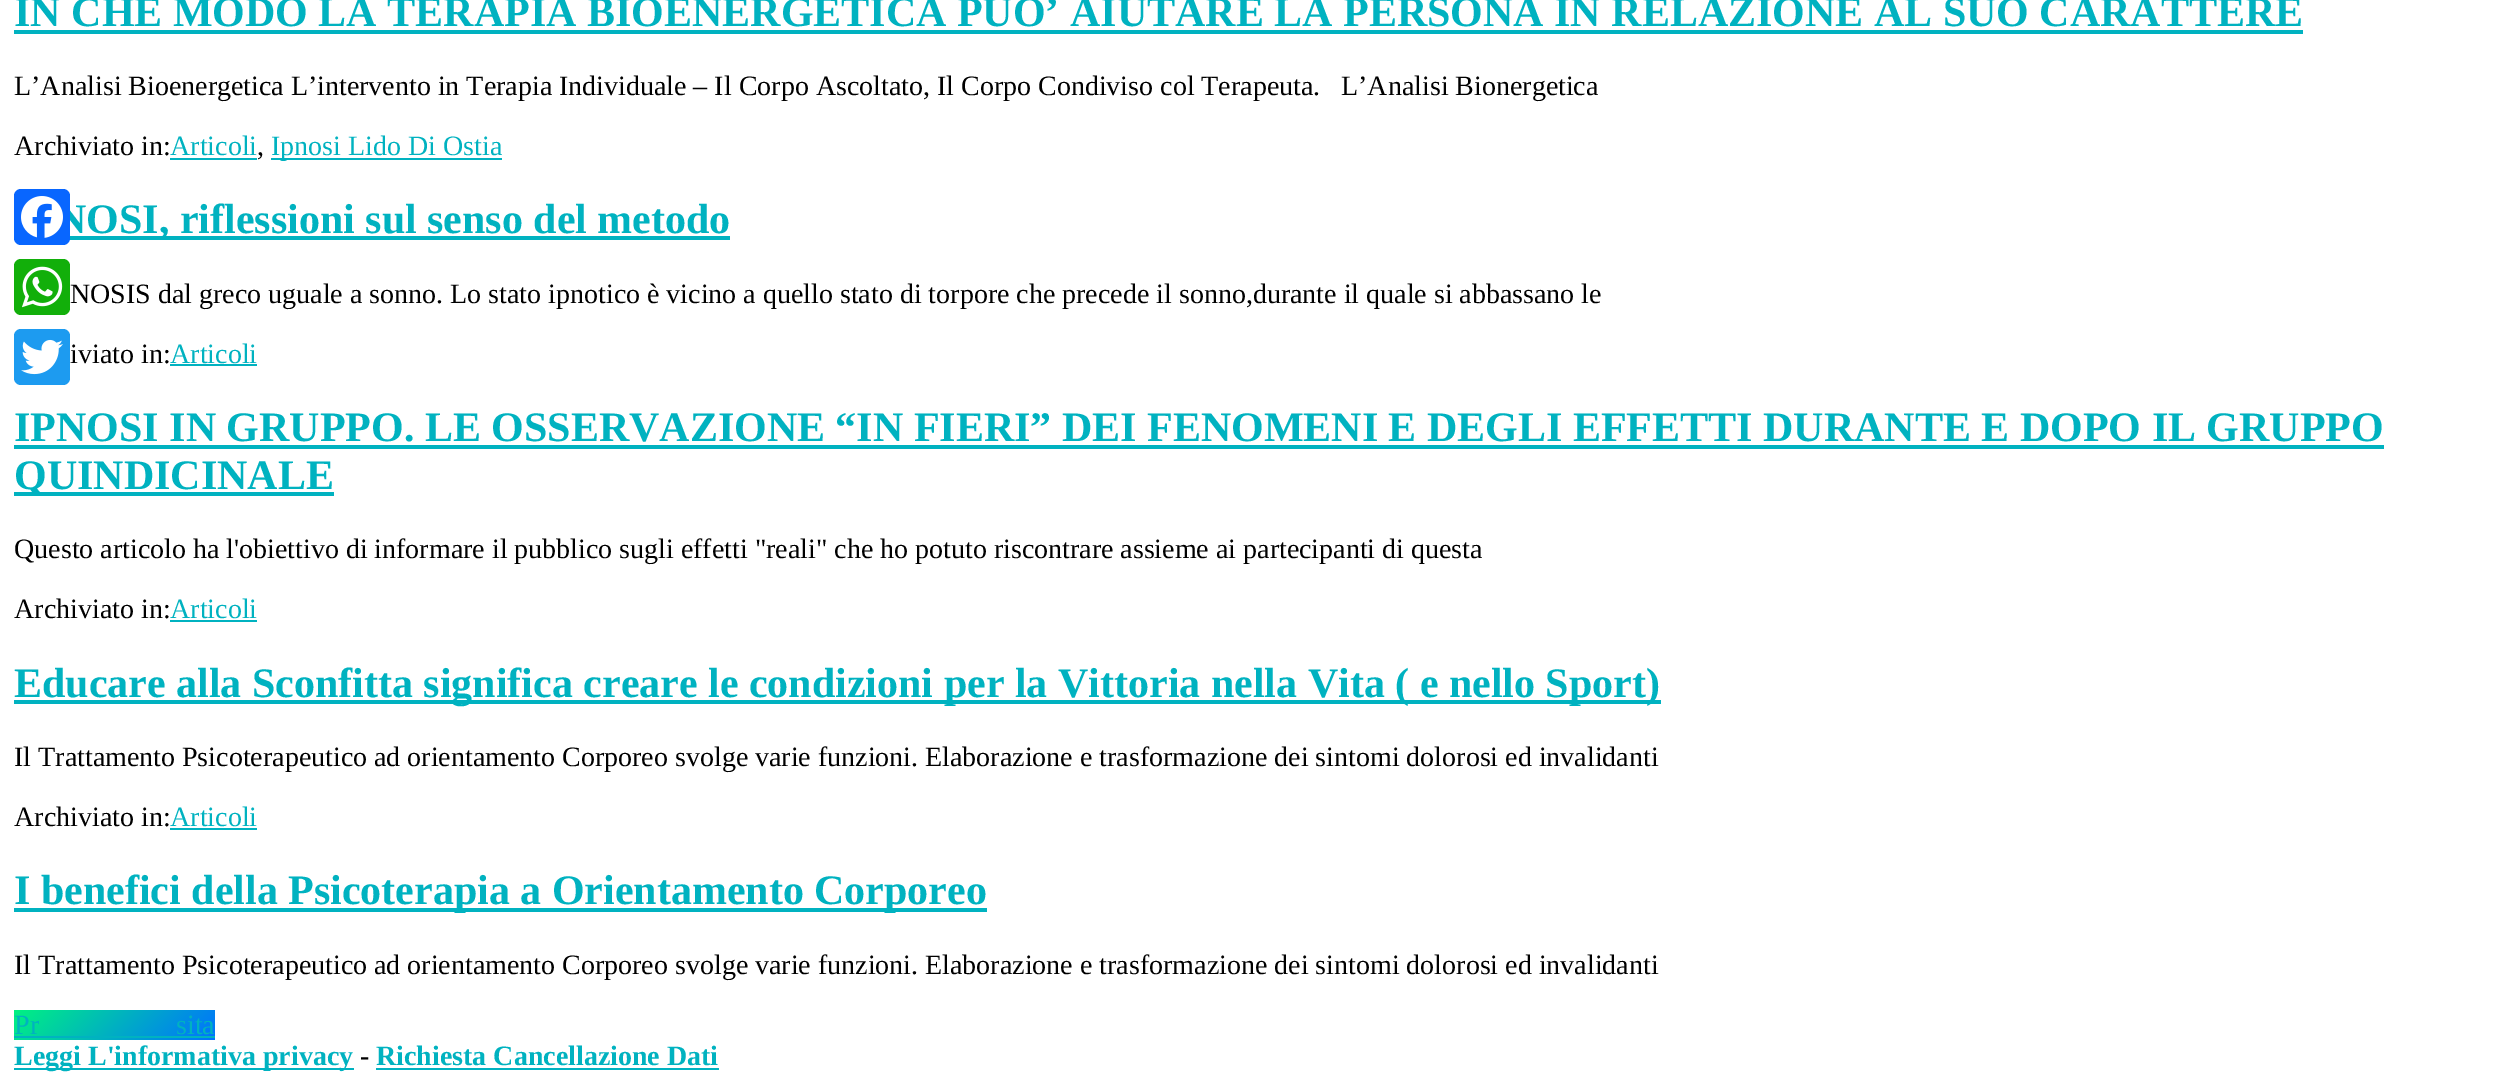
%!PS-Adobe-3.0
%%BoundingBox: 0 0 2501 1075
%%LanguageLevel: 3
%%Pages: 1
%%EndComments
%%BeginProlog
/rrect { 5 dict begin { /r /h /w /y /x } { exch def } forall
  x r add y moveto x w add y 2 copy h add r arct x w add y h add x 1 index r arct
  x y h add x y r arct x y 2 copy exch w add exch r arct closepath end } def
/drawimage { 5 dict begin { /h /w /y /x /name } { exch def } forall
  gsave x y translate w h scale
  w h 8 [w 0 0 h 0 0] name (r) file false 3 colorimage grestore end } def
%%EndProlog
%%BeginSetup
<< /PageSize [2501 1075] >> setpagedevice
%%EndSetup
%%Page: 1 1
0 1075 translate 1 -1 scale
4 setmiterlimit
1 setgray
0 0 2501 1075 rectfill
0 0.698 0.753 setrgbcolor
14 30 2289 4 rectfill
170 158 87 2 rectfill
271 158 231 2 rectfill
14 236 716 4 rectfill
170 364 87 2 rectfill
14 445 2370 4 rectfill
14 492 320 4 rectfill
170 620 87 2 rectfill
14 700 1647 4 rectfill
170 828 87 2 rectfill
14 908 973 4 rectfill
gsave newpath 14 1010 moveto 215 1010 lineto 215 1040 lineto 14 1040 lineto closepath clip newpath
<< /ShadingType 2 /ColorSpace /DeviceRGB /Coords [57 967 172 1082] /Extend [true true] /Function << /FunctionType 2 /Domain [0 1] /C0 [0 0.949 0.506] /C1 [0 0.447 1] /N 1 >> >> shfill grestore
14 1036 201 2 rectfill
14 1068 340 2 rectfill
376 1068 343 2 rectfill
0.071 0.686 0.039 setrgbcolor
14 259 56 56 7 rrect fill
(images/2.raw) 22 266 41 42 drawimage
0.114 0.608 0.941 setrgbcolor
14 329 56 56 7 rrect fill
(images/3.raw) 21 339 42 36 drawimage
/LiberationSerif-Bold [42 0 0 -42 0 0] selectfont
0 0.698 0.753 setrgbcolor
14 26 moveto (IN CHE MODO LA TERAPIA BIOENERGETICA PUO’ AIUTARE LA PERSONA IN RELAZIONE AL SUO CARATTERE) show
/LiberationSerif-Regular [28 0 0 -28 0 0] selectfont
0 setgray
14 95 moveto (L’Analisi Bioenergetica L’intervento in Terapia Individuale – Il Corpo Ascoltato, Il Corpo Condiviso col Terapeuta.) show
1341 95 moveto (L’Analisi Bionergetica) show
14 155 moveto (Archiviato in:) show
0 0.698 0.753 setrgbcolor
170 155 moveto (Articoli) show
0 setgray
257 155 moveto (,) show
0 0.698 0.753 setrgbcolor
271 155 moveto (Ipnosi Lido Di Ostia) show
/LiberationSerif-Bold [42 0 0 -42 0 0] selectfont
56 233 moveto (NOSI, riflessioni sul senso del metodo) show
/LiberationSerif-Regular [28 0 0 -28 0 0] selectfont
0 setgray
70 303 moveto (NOSIS dal greco uguale a sonno. Lo stato ipnotico è vicino a quello stato di torpore che precede il sonno,durante il quale si abbassano le) show
70 363 moveto (iviato in:) show
0 0.698 0.753 setrgbcolor
170 363 moveto (Articoli) show
/LiberationSerif-Bold [42 0 0 -42 0 0] selectfont
14 441 moveto (IPNOSI IN GRUPPO. LE OSSERVAZIONE “IN FIERI” DEI FENOMENI E DEGLI EFFETTI DURANTE E DOPO IL GRUPPO) show
14 489 moveto (QUINDICINALE) show
/LiberationSerif-Regular [28 0 0 -28 0 0] selectfont
0 setgray
14 558 moveto (Questo articolo ha l'obiettivo di informare il pubblico sugli effetti "reali" che ho potuto riscontrare assieme ai partecipanti di questa) show
14 618 moveto (Archiviato in:) show
0 0.698 0.753 setrgbcolor
170 618 moveto (Articoli) show
/LiberationSerif-Bold [42 0 0 -42 0 0] selectfont
14 697 moveto (Educare alla Sconfitta significa creare le condizioni per la Vittoria nella Vita \( e nello Sport\)) show
/LiberationSerif-Regular [28 0 0 -28 0 0] selectfont
0 setgray
14 766 moveto (Il Trattamento Psicoterapeutico ad orientamento Corporeo svolge varie funzioni. Elaborazione e trasformazione dei sintomi dolorosi ed invalidanti) show
14 826 moveto (Archiviato in:) show
0 0.698 0.753 setrgbcolor
170 826 moveto (Articoli) show
/LiberationSerif-Bold [42 0 0 -42 0 0] selectfont
14 904 moveto (I benefici della Psicoterapia a Orientamento Corporeo) show
/LiberationSerif-Regular [28 0 0 -28 0 0] selectfont
0 setgray
14 974 moveto (Il Trattamento Psicoterapeutico ad orientamento Corporeo svolge varie funzioni. Elaborazione e trasformazione dei sintomi dolorosi ed invalidanti) show
0 0.698 0.753 setrgbcolor
14 1034 moveto (Pr) show
176 1034 moveto (sita) show
/LiberationSerif-Bold [28 0 0 -28 0 0] selectfont
14 1065 moveto (Leggi L'informativa privacy) show
0 setgray
360 1065 moveto (-) show
0 0.698 0.753 setrgbcolor
376 1065 moveto (Richiesta Cancellazione Dati) show
0.031 0.4 1 setrgbcolor
14 189 56 56 7 rrect fill
(images/1.raw) 21 196 42 42 drawimage
showpage
%%EOF
